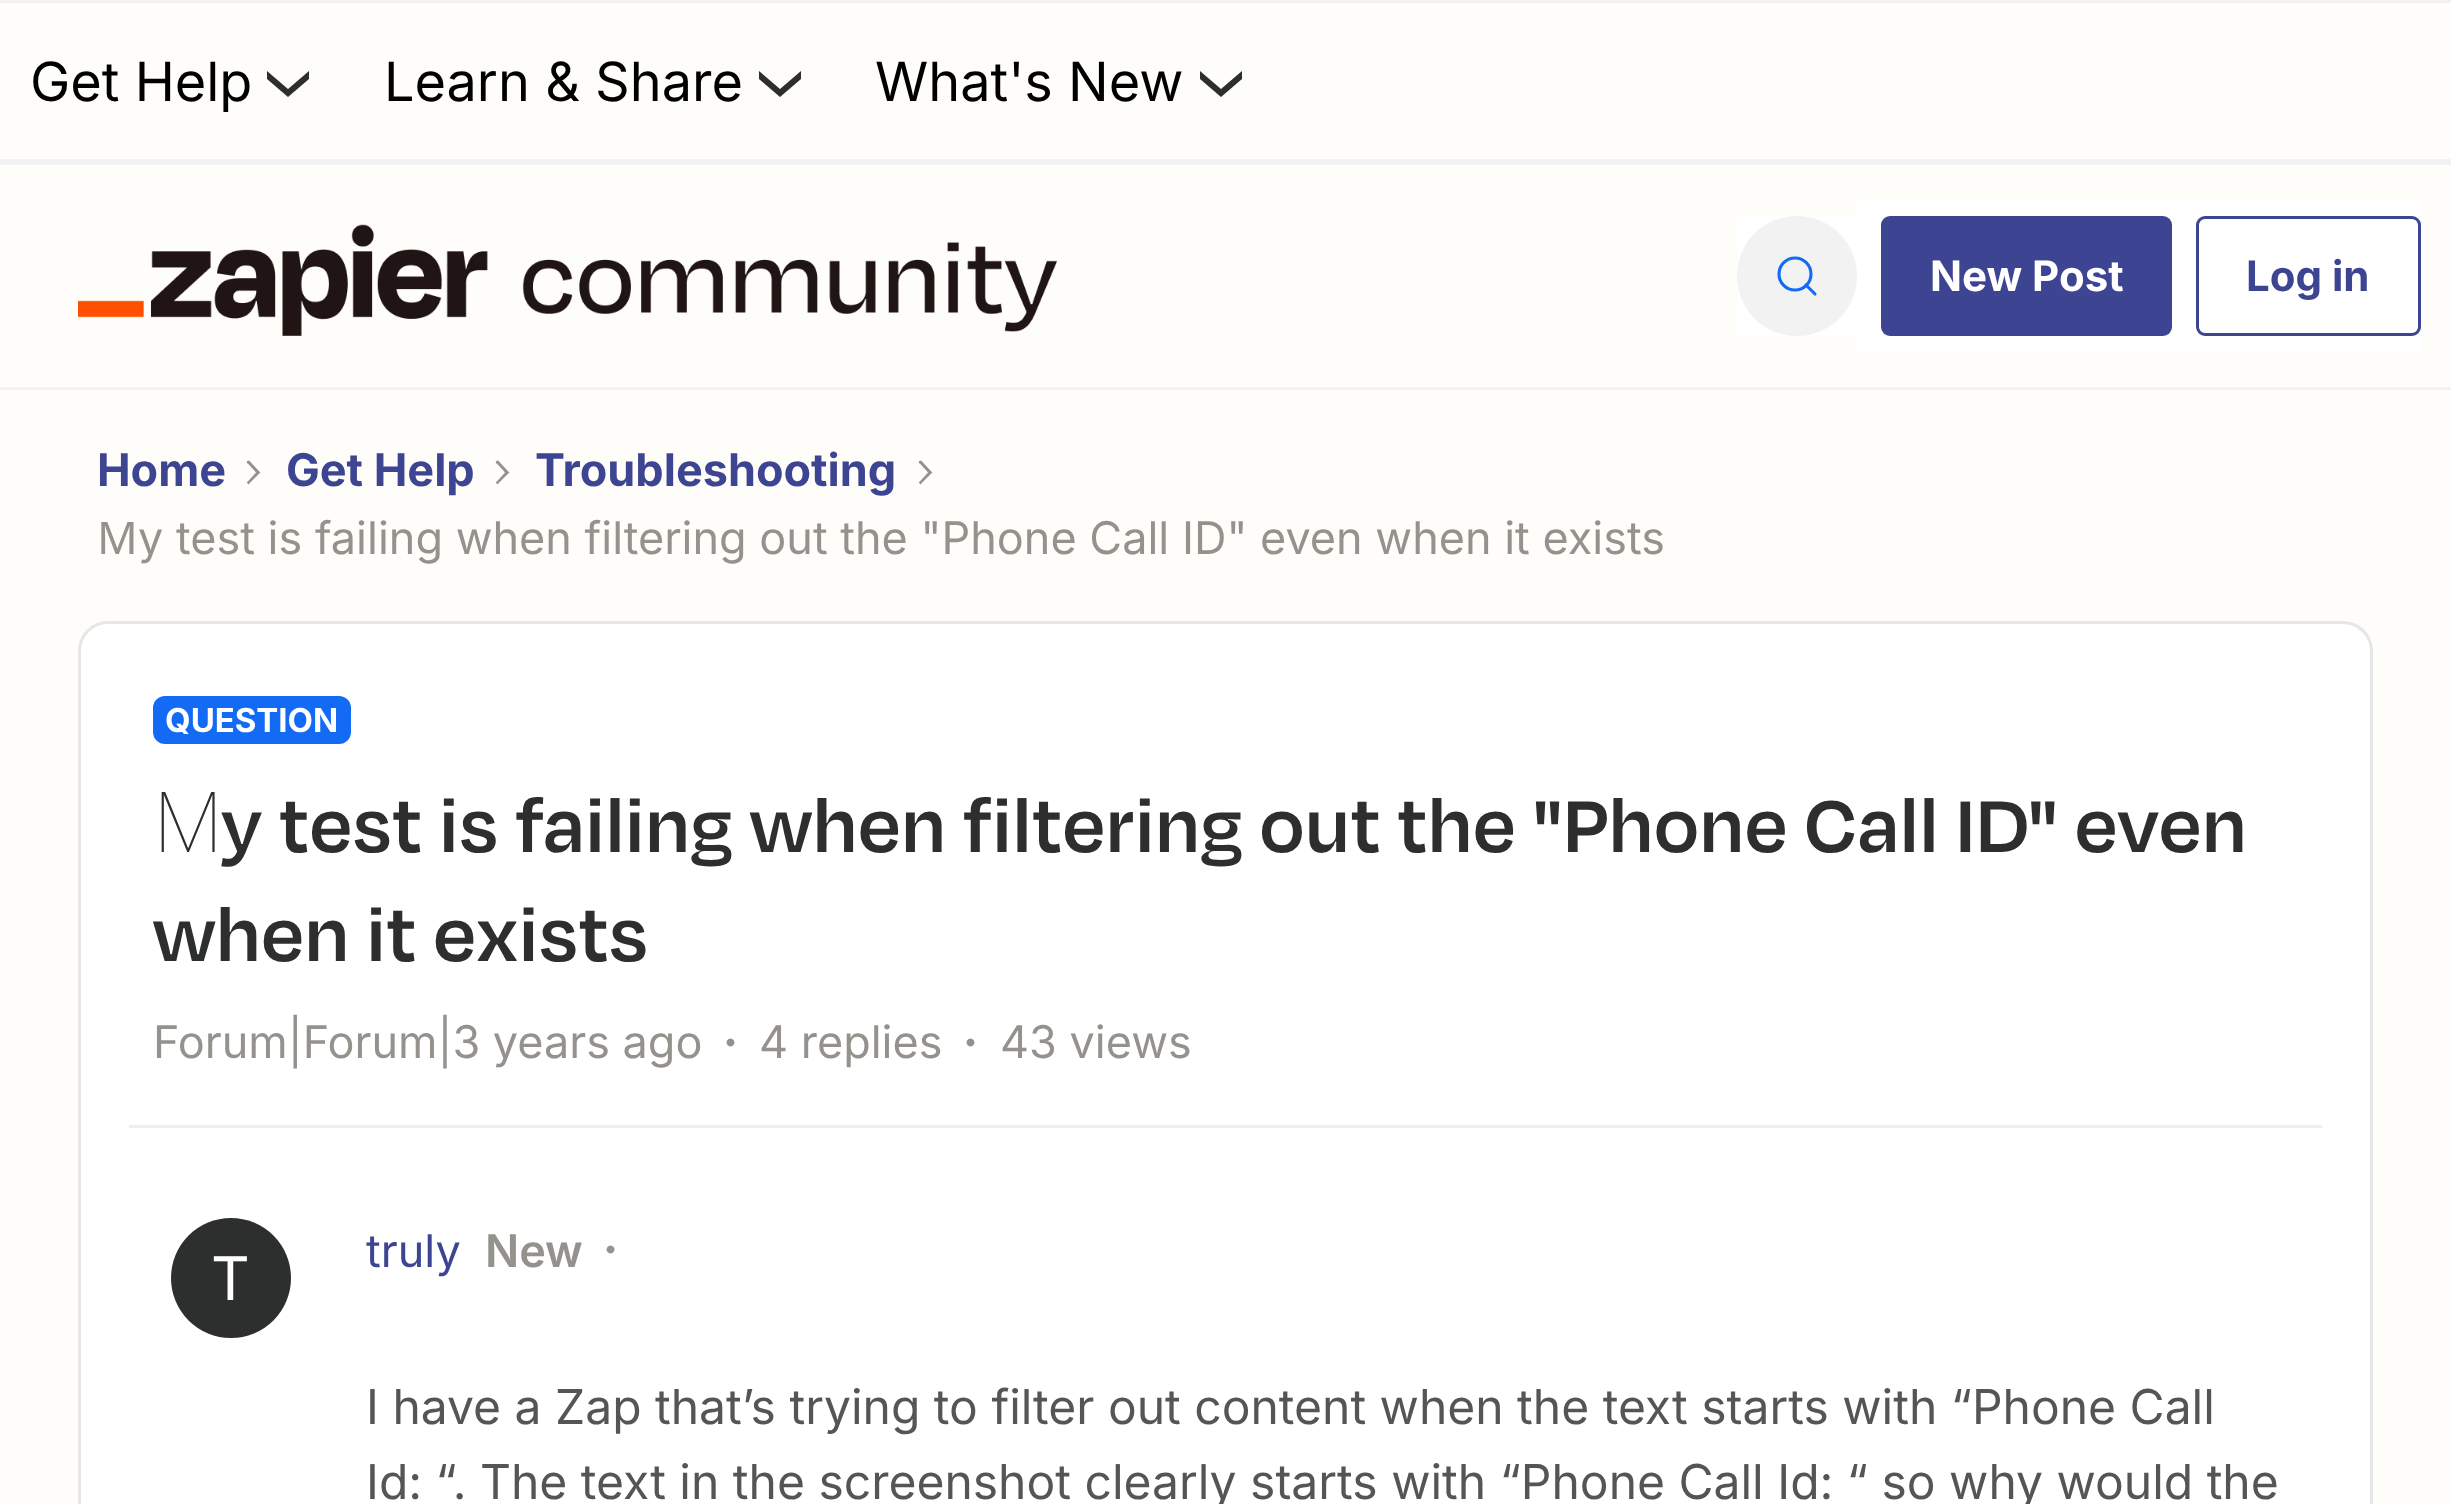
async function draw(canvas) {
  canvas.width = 2451
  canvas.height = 1504
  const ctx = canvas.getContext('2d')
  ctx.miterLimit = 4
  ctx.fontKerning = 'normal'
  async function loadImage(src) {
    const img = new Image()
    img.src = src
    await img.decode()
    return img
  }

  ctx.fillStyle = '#fffdf9'
  ctx.fillRect(0, 0, 2451, 1504)
  ctx.fillStyle = '#f2f2f2'
  ctx.fillRect(0, 0, 2451, 3)
  ctx.font = '54px Inter'
  ctx.fillStyle = '#000'
  ctx.fillText('Get Help', 30, 101)
  ctx.fillStyle = '#2d2e2e'
  ctx.beginPath()
  ctx.moveTo(309, 71)
  ctx.lineTo(309, 79)
  ctx.lineTo(288, 97)
  ctx.lineTo(267, 79)
  ctx.lineTo(267, 71)
  ctx.lineTo(288, 89)
  ctx.closePath()
  ctx.fill()
  ctx.fillStyle = '#000'
  ctx.fillText('Learn & Share', 384, 101)
  ctx.fillStyle = '#2d2e2e'
  ctx.beginPath()
  ctx.moveTo(801, 71)
  ctx.lineTo(801, 79)
  ctx.lineTo(780, 97)
  ctx.lineTo(759, 79)
  ctx.lineTo(759, 71)
  ctx.lineTo(780, 89)
  ctx.closePath()
  ctx.fill()
  ctx.fillStyle = '#000'
  ctx.fillText('What\'s New', 875, 101)
  ctx.fillStyle = '#2d2e2e'
  ctx.beginPath()
  ctx.moveTo(1242, 71)
  ctx.lineTo(1242, 79)
  ctx.lineTo(1221, 97)
  ctx.lineTo(1200, 79)
  ctx.lineTo(1200, 71)
  ctx.lineTo(1221, 89)
  ctx.closePath()
  ctx.fill()
  ctx.fillStyle = '#f2f2f2'
  ctx.fillRect(0, 159, 2451, 6)
  ctx.fillRect(0, 387, 2451, 3)
  ctx.drawImage(await loadImage('image0.png'), 78, 224, 979, 112)
  ctx.fillStyle = '#fff'
  ctx.fillRect(1737, 216, 120, 120)
  ctx.fillStyle = '#f2f2f2'
  ctx.beginPath()
  ctx.arc(1797, 276, 60, 0, 2 * Math.PI)
  ctx.fill()
  ctx.beginPath()
  ctx.arc(1795, 274, 16, 0, 2 * Math.PI)
  ctx.strokeStyle = '#136bf5'
  ctx.lineWidth = 3.1
  ctx.stroke()
  ctx.beginPath()
  ctx.moveTo(1806, 285)
  ctx.lineTo(1815, 294)
  ctx.lineCap = 'round'
  ctx.stroke()
  ctx.fillStyle = '#fff'
  ctx.fillRect(1857, 201, 564, 150)
  ctx.fillStyle = '#3d4592'
  ctx.beginPath()
  ctx.roundRect(1881, 216, 291, 120, 9)
  ctx.fill()
  ctx.font = 'bold 42px Inter'
  ctx.fillStyle = '#fff'
  ctx.fillText('New Post', 1930, 291)
  ctx.beginPath()
  ctx.roundRect(2197.5, 217.5, 222, 117, 7.5)
  ctx.strokeStyle = '#3d4592'
  ctx.lineWidth = 3
  ctx.stroke()
  ctx.fillStyle = '#3d4592'
  ctx.fillText('Log in', 2246, 291)
  ctx.font = 'bold 45px Inter'
  ctx.fillText('Home', 97, 486)
  ctx.drawImage(await loadImage('image1.png'), 246, 460, 15, 25)
  ctx.fillText('Get Help', 286, 486)
  ctx.drawImage(await loadImage('image1.png'), 495, 460, 15, 25)
  ctx.fillText('Troubleshooting', 535, 486)
  ctx.drawImage(await loadImage('image1.png'), 918, 460, 15, 25)
  ctx.font = '45px Noto Sans'
  ctx.fillStyle = '#95928e'
  ctx.fillText('M', 97, 554)
  ctx.font = '45px Inter'
  ctx.fillText('y test is failing when filtering out the "Phone Call ID" even when it exists', 138, 554)
  ctx.fillStyle = '#fff'
  ctx.beginPath()
  ctx.roundRect(79.5, 622.5, 2292, 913, 28.5)
  ctx.fill()
  ctx.strokeStyle = '#e6e6e6'
  ctx.stroke()
  ctx.fillStyle = '#136bf5'
  ctx.beginPath()
  ctx.roundRect(153, 696, 198, 48, 12)
  ctx.fill()
  ctx.font = 'bold 33px Inter'
  ctx.fillStyle = '#fff'
  ctx.fillText('QUESTION', 165, 732)
  ctx.letterSpacing = '0.6px'
  ctx.font = '100 84px Noto Sans'
  ctx.fillStyle = '#2d2e2e'
  ctx.fillText('M', 153, 852)
  ctx.font = '600 84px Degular'
  ctx.fillText('y test is failing when filtering out the "Phone Call ID" even', 221, 852)
  ctx.fillText('when it exists', 153, 961)
  ctx.letterSpacing = '0px'
  ctx.font = '45px Inter'
  ctx.fillStyle = '#95928e'
  ctx.fillText('Forum|Forum|3 years ago', 153, 1058)
  ctx.drawImage(await loadImage('image2.png'), 726, 1038, 9, 9)
  ctx.fillText('4 replies', 759, 1058)
  ctx.drawImage(await loadImage('image2.png'), 966, 1038, 9, 9)
  ctx.fillText('43 views', 1000, 1058)
  ctx.fillStyle = '#efefef'
  ctx.fillRect(129, 1125, 2193, 3)
  ctx.fillStyle = '#2d2e2e'
  ctx.beginPath()
  ctx.arc(231, 1278, 60, 0, 2 * Math.PI)
  ctx.fill()
  ctx.font = '60px Inter'
  ctx.fillStyle = '#fff'
  ctx.fillText('T', 211, 1300)
  ctx.font = '45px Inter'
  ctx.fillStyle = '#3d4592'
  ctx.fillText('truly', 366, 1267)
  ctx.font = '600 45px Inter'
  ctx.fillStyle = '#95928e'
  ctx.fillText('New', 485, 1267)
  ctx.drawImage(await loadImage('image2.png'), 606, 1245, 9, 9)
  ctx.font = '48px Inter'
  ctx.fillStyle = '#555'
  ctx.fillText('I have a Zap that’s trying to filter out content when the text starts with “Phone Call', 366, 1424)
  ctx.fillText('Id: “. The text in the screenshot clearly starts with “Phone Call Id: “ so why would the', 366, 1499)
}

draw(document.querySelector('canvas'))
